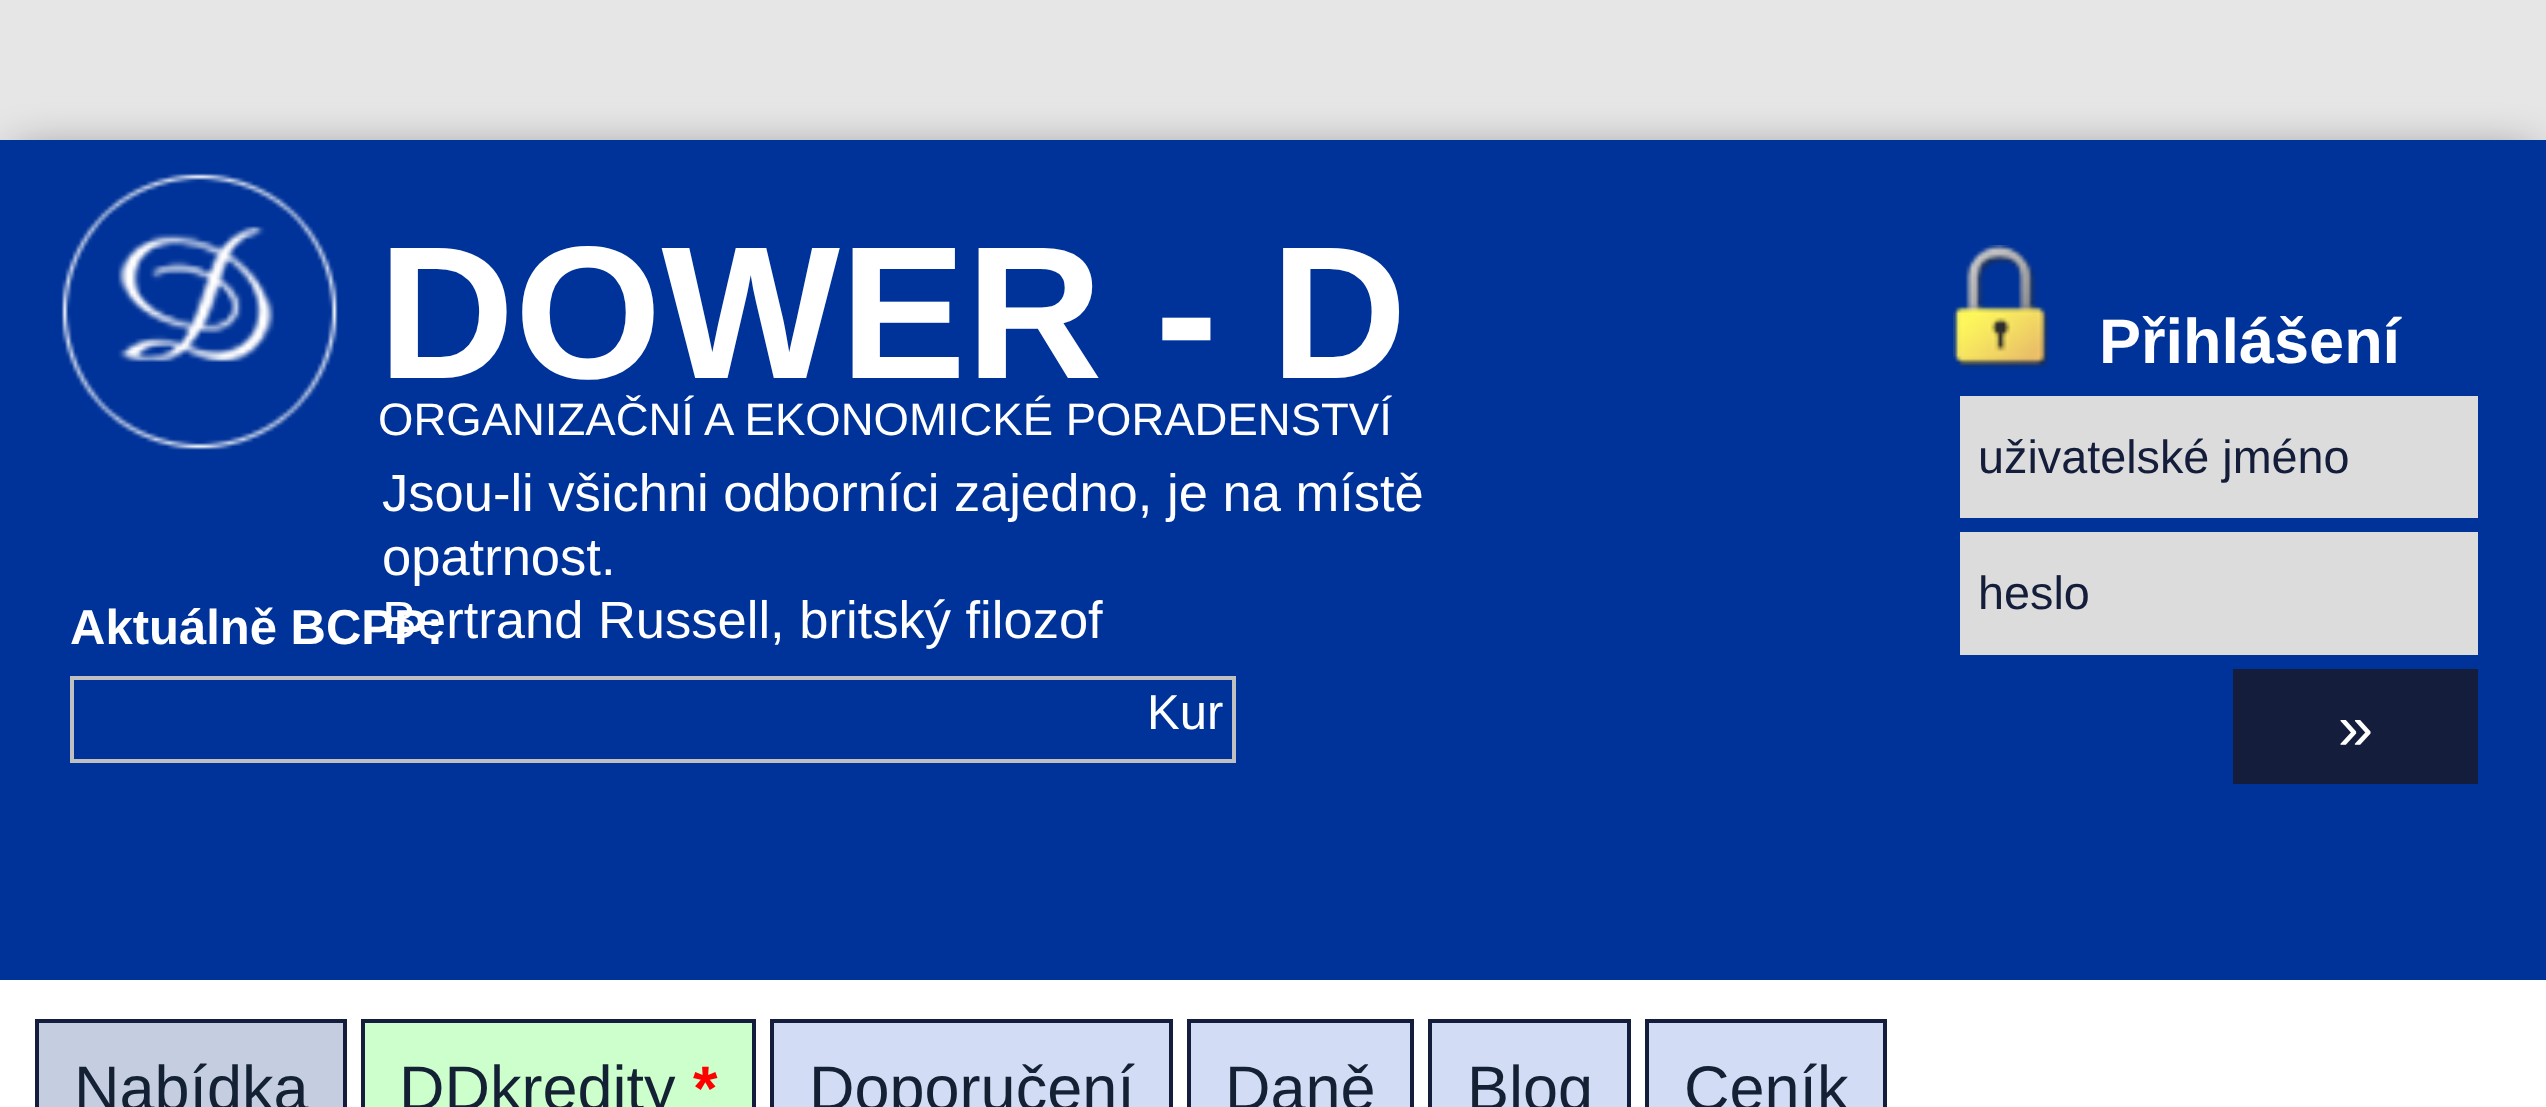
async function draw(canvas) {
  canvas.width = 2546
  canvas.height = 1107
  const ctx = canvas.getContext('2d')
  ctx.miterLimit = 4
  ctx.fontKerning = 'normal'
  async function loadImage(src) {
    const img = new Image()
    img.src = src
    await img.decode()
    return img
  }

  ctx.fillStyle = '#e6e6e6'
  ctx.fillRect(0, 0, 2546, 1107)
  ctx.fillStyle = '#00000078'
  ctx.filter = 'blur(23px)'
  ctx.beginPath()
  ctx.rect(14, 154, 2520, 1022)
  ctx.fill()
  ctx.filter = 'none'
  ctx.fillStyle = '#fff'
  ctx.fillRect(0, 980, 2546, 127)
  ctx.fillStyle = '#039'
  ctx.fillRect(0, 140, 2546, 840)
  ctx.drawImage(await loadImage('image0.png'), 61, 173, 277, 277)
  ctx.font = 'bold 189px Liberation Sans'
  ctx.fillStyle = '#fff'
  ctx.fillText('DOWER - D', 378, 378)
  ctx.font = '45.5px Liberation Sans'
  ctx.fillText('ORGANIZAČNÍ A EKONOMICKÉ PORADENSTVÍ', 378, 435)
  ctx.font = '52.5px Liberation Sans'
  ctx.fillText('Jsou-li všichni odborníci zajedno, je na místě', 382, 511)
  ctx.fillText('opatrnost.', 382, 575)
  ctx.fillText('Bertrand Russell, britský filozof', 382, 638)
  ctx.drawImage(await loadImage('image1.png'), 1953, 245, 96, 124)
  ctx.font = 'bold 63px Liberation Sans'
  ctx.fillText('Přihlášení', 2099, 363)
  ctx.fillStyle = '#dcdcdc'
  ctx.fillRect(1960, 396, 518, 122)
  ctx.font = '46.75px Liberation Sans'
  ctx.fillStyle = '#141d3a'
  ctx.fillText('uživatelské jméno', 1978, 473)
  ctx.fillStyle = '#dcdcdc'
  ctx.fillRect(1960, 532, 518, 123)
  ctx.fillStyle = '#141d3a'
  ctx.fillText('heslo', 1978, 609)
  ctx.fillStyle = '#141d3c'
  ctx.fillRect(2233, 669, 245, 115)
  ctx.font = '63px Liberation Sans'
  ctx.fillStyle = '#fff'
  ctx.fillText('»', 2338, 749)
  ctx.font = 'bold 49px Liberation Sans'
  ctx.fillText('Aktuálně BCPP:', 70, 644)
  ctx.strokeStyle = '#c0c0c0'
  ctx.lineWidth = 4
  ctx.strokeRect(72, 678, 1162, 83)
  ctx.font = '49px Liberation Sans'
  ctx.fillText('Kur', 1147, 729)
  ctx.fillStyle = '#c5cde0'
  ctx.fillRect(39, 1023, 304, 84)
  ctx.fillStyle = '#141d3c'
  ctx.fillRect(35, 1019, 312, 4)
  ctx.fillRect(343, 1019, 4, 88)
  ctx.fillRect(35, 1019, 4, 88)
  ctx.font = '63px Liberation Sans'
  ctx.fillStyle = '#142134'
  ctx.fillText('Nabídka', 74, 1110)
  ctx.fillStyle = '#cfc'
  ctx.beginPath()
  ctx.rect(363, 1021, 391, 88)
  ctx.fill()
  ctx.strokeStyle = '#141d3c'
  ctx.stroke()
  ctx.fillStyle = '#142134'
  ctx.fillText('DDkredity', 399, 1110)
  ctx.font = 'bold 63px Liberation Sans'
  ctx.fillStyle = '#f00'
  ctx.fillText('*', 693, 1110)
  ctx.fillStyle = '#d2dcf5'
  ctx.beginPath()
  ctx.rect(772, 1021, 399, 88)
  ctx.fill()
  ctx.stroke()
  ctx.font = '63px Liberation Sans'
  ctx.fillStyle = '#142134'
  ctx.fillText('Doporučení', 809, 1110)
  ctx.fillStyle = '#d2dcf5'
  ctx.beginPath()
  ctx.rect(1189, 1021, 223, 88)
  ctx.fill()
  ctx.stroke()
  ctx.fillStyle = '#142134'
  ctx.fillText('Daně', 1225, 1110)
  ctx.fillStyle = '#d2dcf5'
  ctx.beginPath()
  ctx.rect(1430, 1021, 199, 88)
  ctx.fill()
  ctx.stroke()
  ctx.fillStyle = '#142134'
  ctx.fillText('Blog', 1467, 1110)
  ctx.fillStyle = '#d2dcf5'
  ctx.beginPath()
  ctx.rect(1647, 1021, 238, 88)
  ctx.fill()
  ctx.stroke()
  ctx.fillStyle = '#142134'
  ctx.fillText('Ceník', 1684, 1110)
}

draw(document.querySelector('canvas'))
